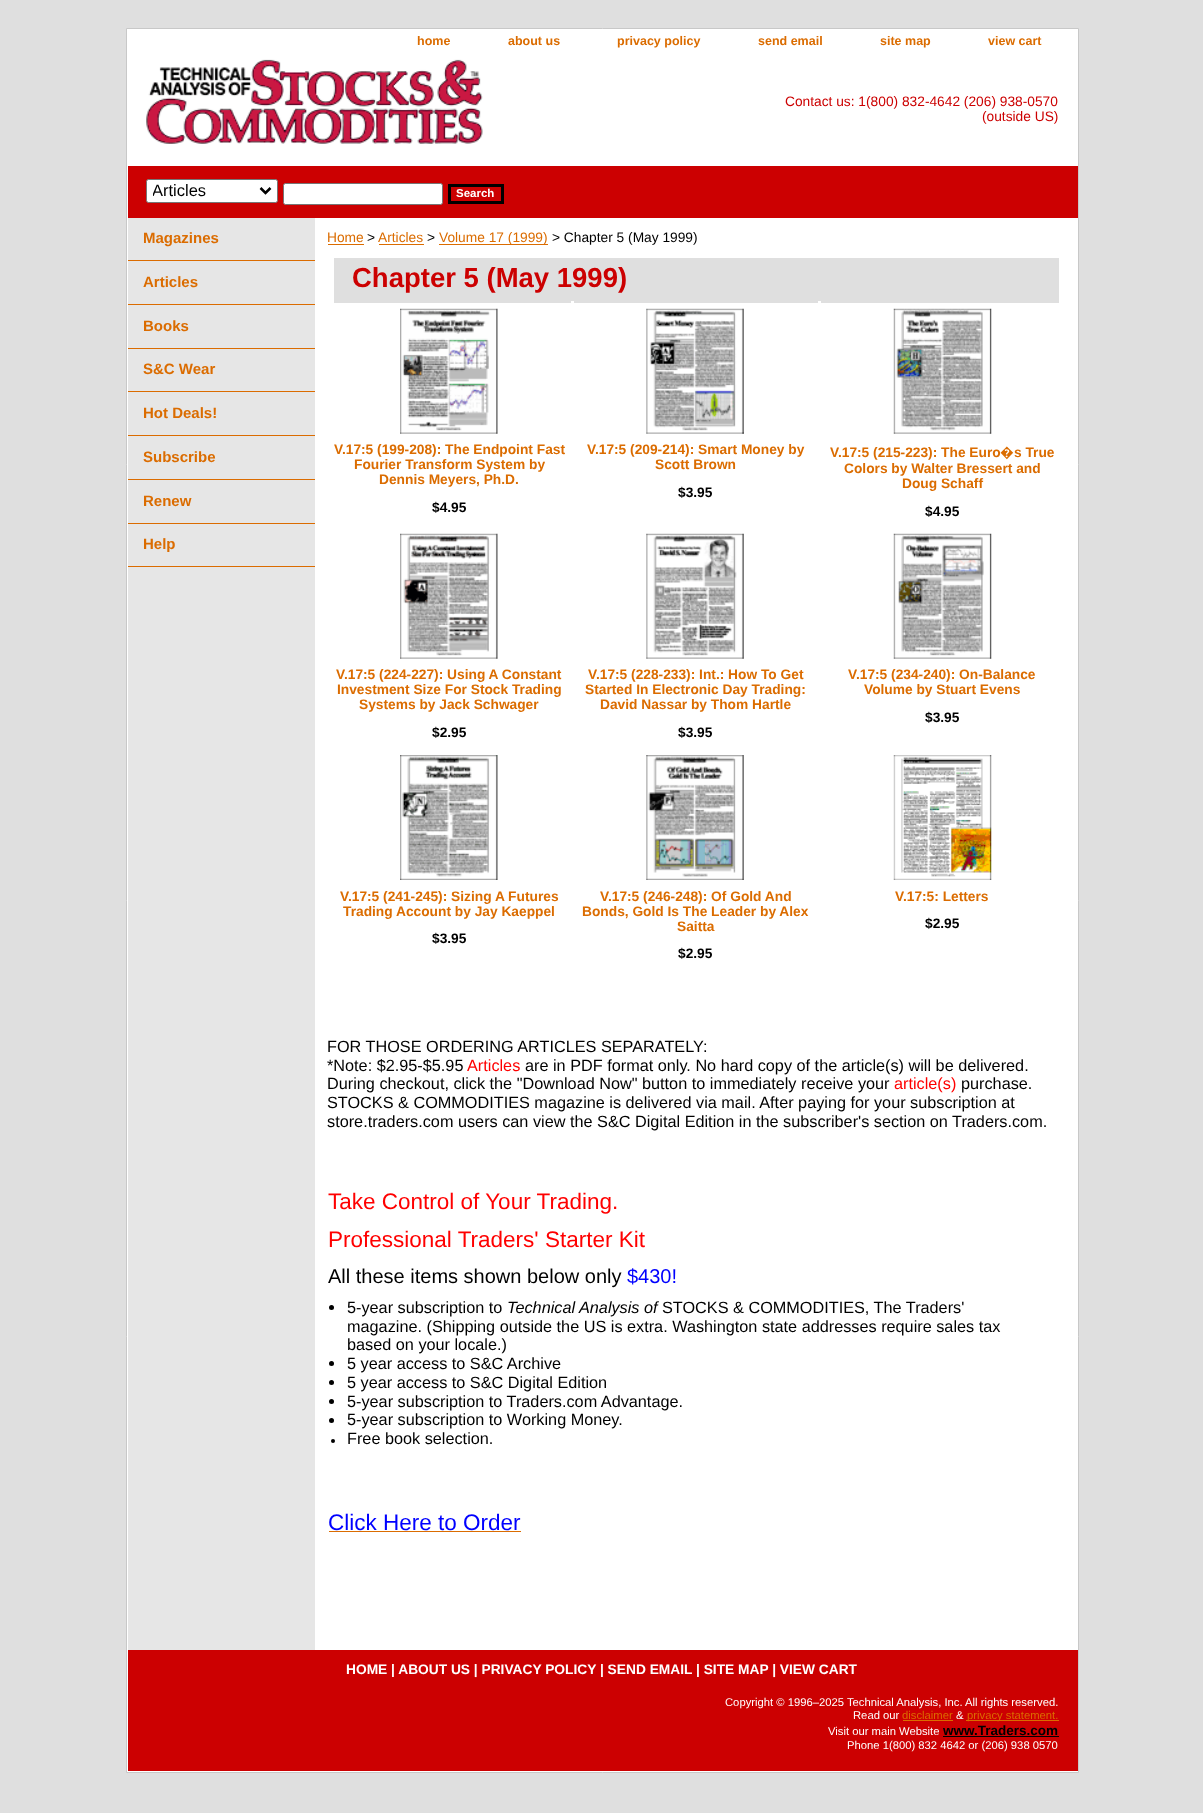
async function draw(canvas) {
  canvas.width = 1203
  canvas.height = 1813
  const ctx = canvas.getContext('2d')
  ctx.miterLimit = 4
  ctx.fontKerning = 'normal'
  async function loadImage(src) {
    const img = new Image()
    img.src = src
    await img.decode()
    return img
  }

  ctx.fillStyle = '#dfdfdf'
  ctx.fillRect(0, 0, 1203, 1813)
  ctx.fillStyle = '#fff'
  ctx.beginPath()
  ctx.rect(126.5, 28.5, 952, 1744)
  ctx.fill()
  ctx.strokeStyle = '#c8c8c8'
  ctx.stroke()
  ctx.font = 'bold 12.5px Liberation Sans'
  ctx.fillStyle = '#db6c00'
  ctx.fillText('home', 417, 45)
  ctx.fillText('about us', 508, 45)
  ctx.fillText('privacy policy', 617, 45)
  ctx.fillText('send email', 758, 45)
  ctx.fillText('site map', 880, 45)
  ctx.fillText('view cart', 988, 45)
  ctx.drawImage(await loadImage('image0.png'), 146, 59, 337, 85)
  ctx.font = '13.75px Liberation Sans'
  ctx.fillStyle = '#cc0001'
  ctx.fillText('Contact us: 1(800) 832-4642 (206) 938-0570', 785, 106)
  ctx.fillText('(outside US)', 982, 121)
  ctx.fillRect(128, 166, 950, 52)
  ctx.fillStyle = '#fff'
  ctx.beginPath()
  ctx.roundRect(146.5, 179.5, 131, 23, 2)
  ctx.fill()
  ctx.strokeStyle = '#767676'
  ctx.stroke()
  ctx.beginPath()
  ctx.moveTo(260.5, 188)
  ctx.lineTo(265.5, 193)
  ctx.lineTo(270.5, 188)
  ctx.strokeStyle = '#000'
  ctx.lineWidth = 2.5
  ctx.stroke()
  ctx.save()
  ctx.beginPath()
  ctx.rect(153, 180, 103, 21)
  ctx.clip()
  ctx.font = '16.5px Liberation Sans'
  ctx.fillStyle = '#000'
  ctx.fillText('Articles', 152, 196)
  ctx.restore()
  ctx.beginPath()
  ctx.roundRect(283.5, 183.5, 159, 21, 2)
  ctx.fill()
  ctx.strokeStyle = '#767676'
  ctx.lineWidth = 1
  ctx.stroke()
  ctx.strokeStyle = '#000'
  ctx.lineWidth = 3
  ctx.strokeRect(449.5, 185.5, 53, 17)
  ctx.font = 'bold 11.5px Liberation Sans'
  ctx.fillText('Search', 456, 197)
  ctx.fillStyle = '#e6e6e6'
  ctx.fillRect(128, 218, 187, 1432)
  ctx.fillStyle = '#db6c00'
  ctx.fillRect(128, 260, 187, 1)
  ctx.font = 'bold 15px Liberation Sans'
  ctx.fillText('Magazines', 143, 243)
  ctx.fillRect(128, 304, 187, 1)
  ctx.fillText('Articles', 143, 287)
  ctx.fillRect(128, 348, 187, 1)
  ctx.fillText('Books', 143, 331)
  ctx.fillRect(128, 391, 187, 1)
  ctx.fillText('S&C Wear', 143, 374)
  ctx.fillRect(128, 435, 187, 1)
  ctx.fillText('Hot Deals!', 143, 418)
  ctx.fillRect(128, 479, 187, 1)
  ctx.fillText('Subscribe', 143, 462)
  ctx.fillRect(128, 523, 187, 1)
  ctx.fillText('Renew', 143, 506)
  ctx.fillRect(128, 566, 187, 1)
  ctx.fillText('Help', 143, 549)
  ctx.font = '13.75px Liberation Sans'
  ctx.fillText('Home', 327, 242)
  ctx.fillRect(328, 244, 36, 1)
  ctx.fillStyle = '#000'
  ctx.fillText('>', 367, 242)
  ctx.fillStyle = '#db6c00'
  ctx.fillText('Articles', 378, 242)
  ctx.fillRect(379, 244, 45, 1)
  ctx.fillStyle = '#000'
  ctx.fillText('>', 427, 242)
  ctx.fillStyle = '#db6c00'
  ctx.fillRect(439, 244, 109, 1)
  ctx.fillText('Volume 17 (1999)', 439, 242)
  ctx.fillStyle = '#000'
  ctx.fillText('> Chapter 5 (May 1999)', 552, 242)
  ctx.fillStyle = '#dfdfdf'
  ctx.fillRect(334, 258, 725, 45)
  ctx.font = 'bold 27.5px Liberation Sans'
  ctx.fillStyle = '#cc0001'
  ctx.fillText('Chapter 5 (May 1999)', 352, 287)
  ctx.fillStyle = '#fff'
  ctx.fillRect(571, 301, 3, 2)
  ctx.drawImage(await loadImage('image1.png'), 400, 308, 98, 126)
  ctx.font = 'bold 13.75px Liberation Sans'
  ctx.fillStyle = '#db6c00'
  ctx.fillText('V.17:5 (199-208): The Endpoint Fast', 334, 454)
  ctx.fillText('Fourier Transform System by', 354, 469)
  ctx.fillText('Dennis Meyers, Ph.D.', 379, 484)
  ctx.fillStyle = '#000'
  ctx.fillText('$4.95', 432, 512)
  ctx.fillStyle = '#fff'
  ctx.fillRect(818, 301, 3, 2)
  ctx.drawImage(await loadImage('image2.png'), 646, 308, 98, 126)
  ctx.fillStyle = '#db6c00'
  ctx.fillText('V.17:5 (209-214): Smart Money by', 587, 454)
  ctx.fillText('Scott Brown', 655, 469)
  ctx.fillStyle = '#000'
  ctx.fillText('$3.95', 678, 497)
  ctx.drawImage(await loadImage('image3.png'), 893, 308, 99, 126)
  ctx.fillStyle = '#db6c00'
  ctx.fillText('V.17:5 (215-223): The Euro', 830, 457)
  ctx.font = 'bold 13.75px Noto Sans'
  ctx.fillText('�', 1000, 457)
  ctx.font = 'bold 13.75px Liberation Sans'
  ctx.fillText('s True', 1014, 457)
  ctx.fillText('Colors by Walter Bressert and', 844, 473)
  ctx.fillText('Doug Schaff', 902, 488)
  ctx.fillStyle = '#000'
  ctx.fillText('$4.95', 925, 516)
  ctx.drawImage(await loadImage('image4.png'), 400, 533, 98, 126)
  ctx.fillStyle = '#db6c00'
  ctx.fillText('V.17:5 (224-227): Using A Constant', 336, 679)
  ctx.fillText('Investment Size For Stock Trading', 337, 694)
  ctx.fillText('Systems by Jack Schwager', 359, 709)
  ctx.fillStyle = '#000'
  ctx.fillText('$2.95', 432, 737)
  ctx.drawImage(await loadImage('image5.png'), 646, 533, 98, 126)
  ctx.fillStyle = '#db6c00'
  ctx.fillText('V.17:5 (228-233): Int.: How To Get', 588, 679)
  ctx.fillText('Started In Electronic Day Trading:', 585, 694)
  ctx.fillText('David Nassar by Thom Hartle', 600, 709)
  ctx.fillStyle = '#000'
  ctx.fillText('$3.95', 678, 737)
  ctx.drawImage(await loadImage('image6.png'), 893, 533, 99, 126)
  ctx.fillStyle = '#db6c00'
  ctx.fillText('V.17:5 (234-240): On-Balance', 848, 679)
  ctx.fillText('Volume by Stuart Evens', 864, 694)
  ctx.fillStyle = '#000'
  ctx.fillText('$3.95', 925, 722)
  ctx.drawImage(await loadImage('image7.png'), 400, 755, 98, 125)
  ctx.fillStyle = '#db6c00'
  ctx.fillText('V.17:5 (241-245): Sizing A Futures', 340, 901)
  ctx.fillText('Trading Account by Jay Kaeppel', 343, 916)
  ctx.fillStyle = '#000'
  ctx.fillText('$3.95', 432, 943)
  ctx.drawImage(await loadImage('image8.png'), 646, 755, 98, 125)
  ctx.fillStyle = '#db6c00'
  ctx.fillText('V.17:5 (246-248): Of Gold And', 600, 901)
  ctx.fillText('Bonds, Gold Is The Leader by Alex', 582, 916)
  ctx.fillText('Saitta', 677, 931)
  ctx.fillStyle = '#000'
  ctx.fillText('$2.95', 678, 958)
  ctx.drawImage(await loadImage('image9.png'), 893, 755, 99, 125)
  ctx.fillStyle = '#db6c00'
  ctx.fillText('V.17:5: Letters', 895, 901)
  ctx.fillStyle = '#000'
  ctx.fillText('$2.95', 925, 928)
  ctx.font = '16.25px Liberation Sans'
  ctx.fillText('FOR THOSE ORDERING ARTICLES SEPARATELY:', 327, 1052)
  ctx.fillText('*Note: $2.95-$5.95', 327, 1071)
  ctx.fillStyle = '#f00'
  ctx.fillText('Articles', 467, 1071)
  ctx.fillStyle = '#000'
  ctx.fillText('are in PDF format only. No hard copy of the article(s) will be delivered.', 525, 1071)
  ctx.fillText('During checkout, click the "Download Now" button to immediately receive your', 327, 1089)
  ctx.fillStyle = '#f00'
  ctx.fillText('article(s)', 894, 1089)
  ctx.fillStyle = '#000'
  ctx.fillText('purchase.', 961, 1089)
  ctx.fillText('STOCKS & COMMODITIES magazine is delivered via mail. After paying for your subscription at', 327, 1108)
  ctx.fillText('store.traders.com users can view the S&C Digital Edition in the subscriber\'s section on Traders.com.', 327, 1127)
  ctx.font = '22.5px Liberation Sans'
  ctx.fillStyle = '#f00'
  ctx.fillText('Take Control of Your Trading.', 328, 1209)
  ctx.fillText('Professional Traders\' Starter Kit', 328, 1247)
  ctx.font = '20px Liberation Sans'
  ctx.fillStyle = '#000'
  ctx.fillText('All these items shown below only', 328, 1283)
  ctx.fillStyle = '#00f'
  ctx.fillText('$430!', 627, 1283)
  ctx.fillStyle = '#000'
  ctx.beginPath()
  ctx.arc(331.5, 1307.5, 2.5, 0, 2 * Math.PI)
  ctx.fill()
  ctx.font = '16.25px Liberation Sans'
  ctx.fillText('5-year subscription to', 347, 1313)
  ctx.font = 'italic 16.25px Liberation Sans'
  ctx.fillText('Technical Analysis of', 507, 1313)
  ctx.font = '16.25px Liberation Sans'
  ctx.fillText('STOCKS & COMMODITIES, The Traders\'', 662, 1313)
  ctx.fillText('magazine. (Shipping outside the US is extra. Washington state addresses require sales tax', 347, 1332)
  ctx.fillText('based on your locale.)', 347, 1350)
  ctx.beginPath()
  ctx.arc(331.5, 1363.5, 2.5, 0, 2 * Math.PI)
  ctx.fill()
  ctx.fillText('5 year access to S&C Archive', 347, 1369)
  ctx.beginPath()
  ctx.arc(331.5, 1382.5, 2.5, 0, 2 * Math.PI)
  ctx.fill()
  ctx.fillText('5 year access to S&C Digital Edition', 347, 1388)
  ctx.beginPath()
  ctx.arc(331.5, 1401.5, 2.5, 0, 2 * Math.PI)
  ctx.fill()
  ctx.fillText('5-year subscription to Traders.com Advantage.', 347, 1407)
  ctx.beginPath()
  ctx.arc(331.5, 1420.5, 2.5, 0, 2 * Math.PI)
  ctx.fill()
  ctx.fillText('5-year subscription to Working Money.', 347, 1425)
  ctx.beginPath()
  ctx.arc(333, 1441, 2, 0, 2 * Math.PI)
  ctx.fill()
  ctx.fillText('Free book selection.', 347, 1444)
  ctx.font = '22.5px Liberation Sans'
  ctx.fillStyle = '#00f'
  ctx.fillText('Click Here to Order', 328, 1530)
  ctx.fillStyle = '#db6c00'
  ctx.fillRect(329, 1531, 192, 1)
  ctx.fillStyle = '#cc0001'
  ctx.fillRect(128, 1650, 950, 121)
  ctx.font = 'bold 13.75px Liberation Sans'
  ctx.fillStyle = '#fff'
  ctx.fillText('HOME | ABOUT US | PRIVACY POLICY | SEND EMAIL | SITE MAP | VIEW CART', 346, 1674)
  ctx.font = '11.25px Liberation Sans'
  ctx.fillText('Copyright © 1996–2025 Technical Analysis, Inc. All rights reserved.', 725, 1706)
  ctx.fillText('Read our', 853, 1719)
  ctx.fillStyle = '#db6c00'
  ctx.fillText('disclaimer', 902, 1719)
  ctx.fillRect(903, 1720, 50, 1)
  ctx.fillStyle = '#fff'
  ctx.fillText('&', 956, 1719)
  ctx.fillStyle = '#db6c00'
  ctx.fillRect(966, 1720, 93, 1)
  ctx.fillText('privacy statement.', 967, 1719)
  ctx.fillStyle = '#fff'
  ctx.fillText('Visit our main Website', 828, 1735)
  ctx.font = 'bold 13.5px Liberation Sans'
  ctx.fillStyle = '#000'
  ctx.fillText('www.Traders.com', 943, 1735)
  ctx.fillRect(943, 1736, 116, 1)
  ctx.font = '11.25px Liberation Sans'
  ctx.fillStyle = '#fff'
  ctx.fillText('Phone 1(800) 832 4642 or (206) 938 0570', 847, 1749)
}

draw(document.querySelector('canvas'))
